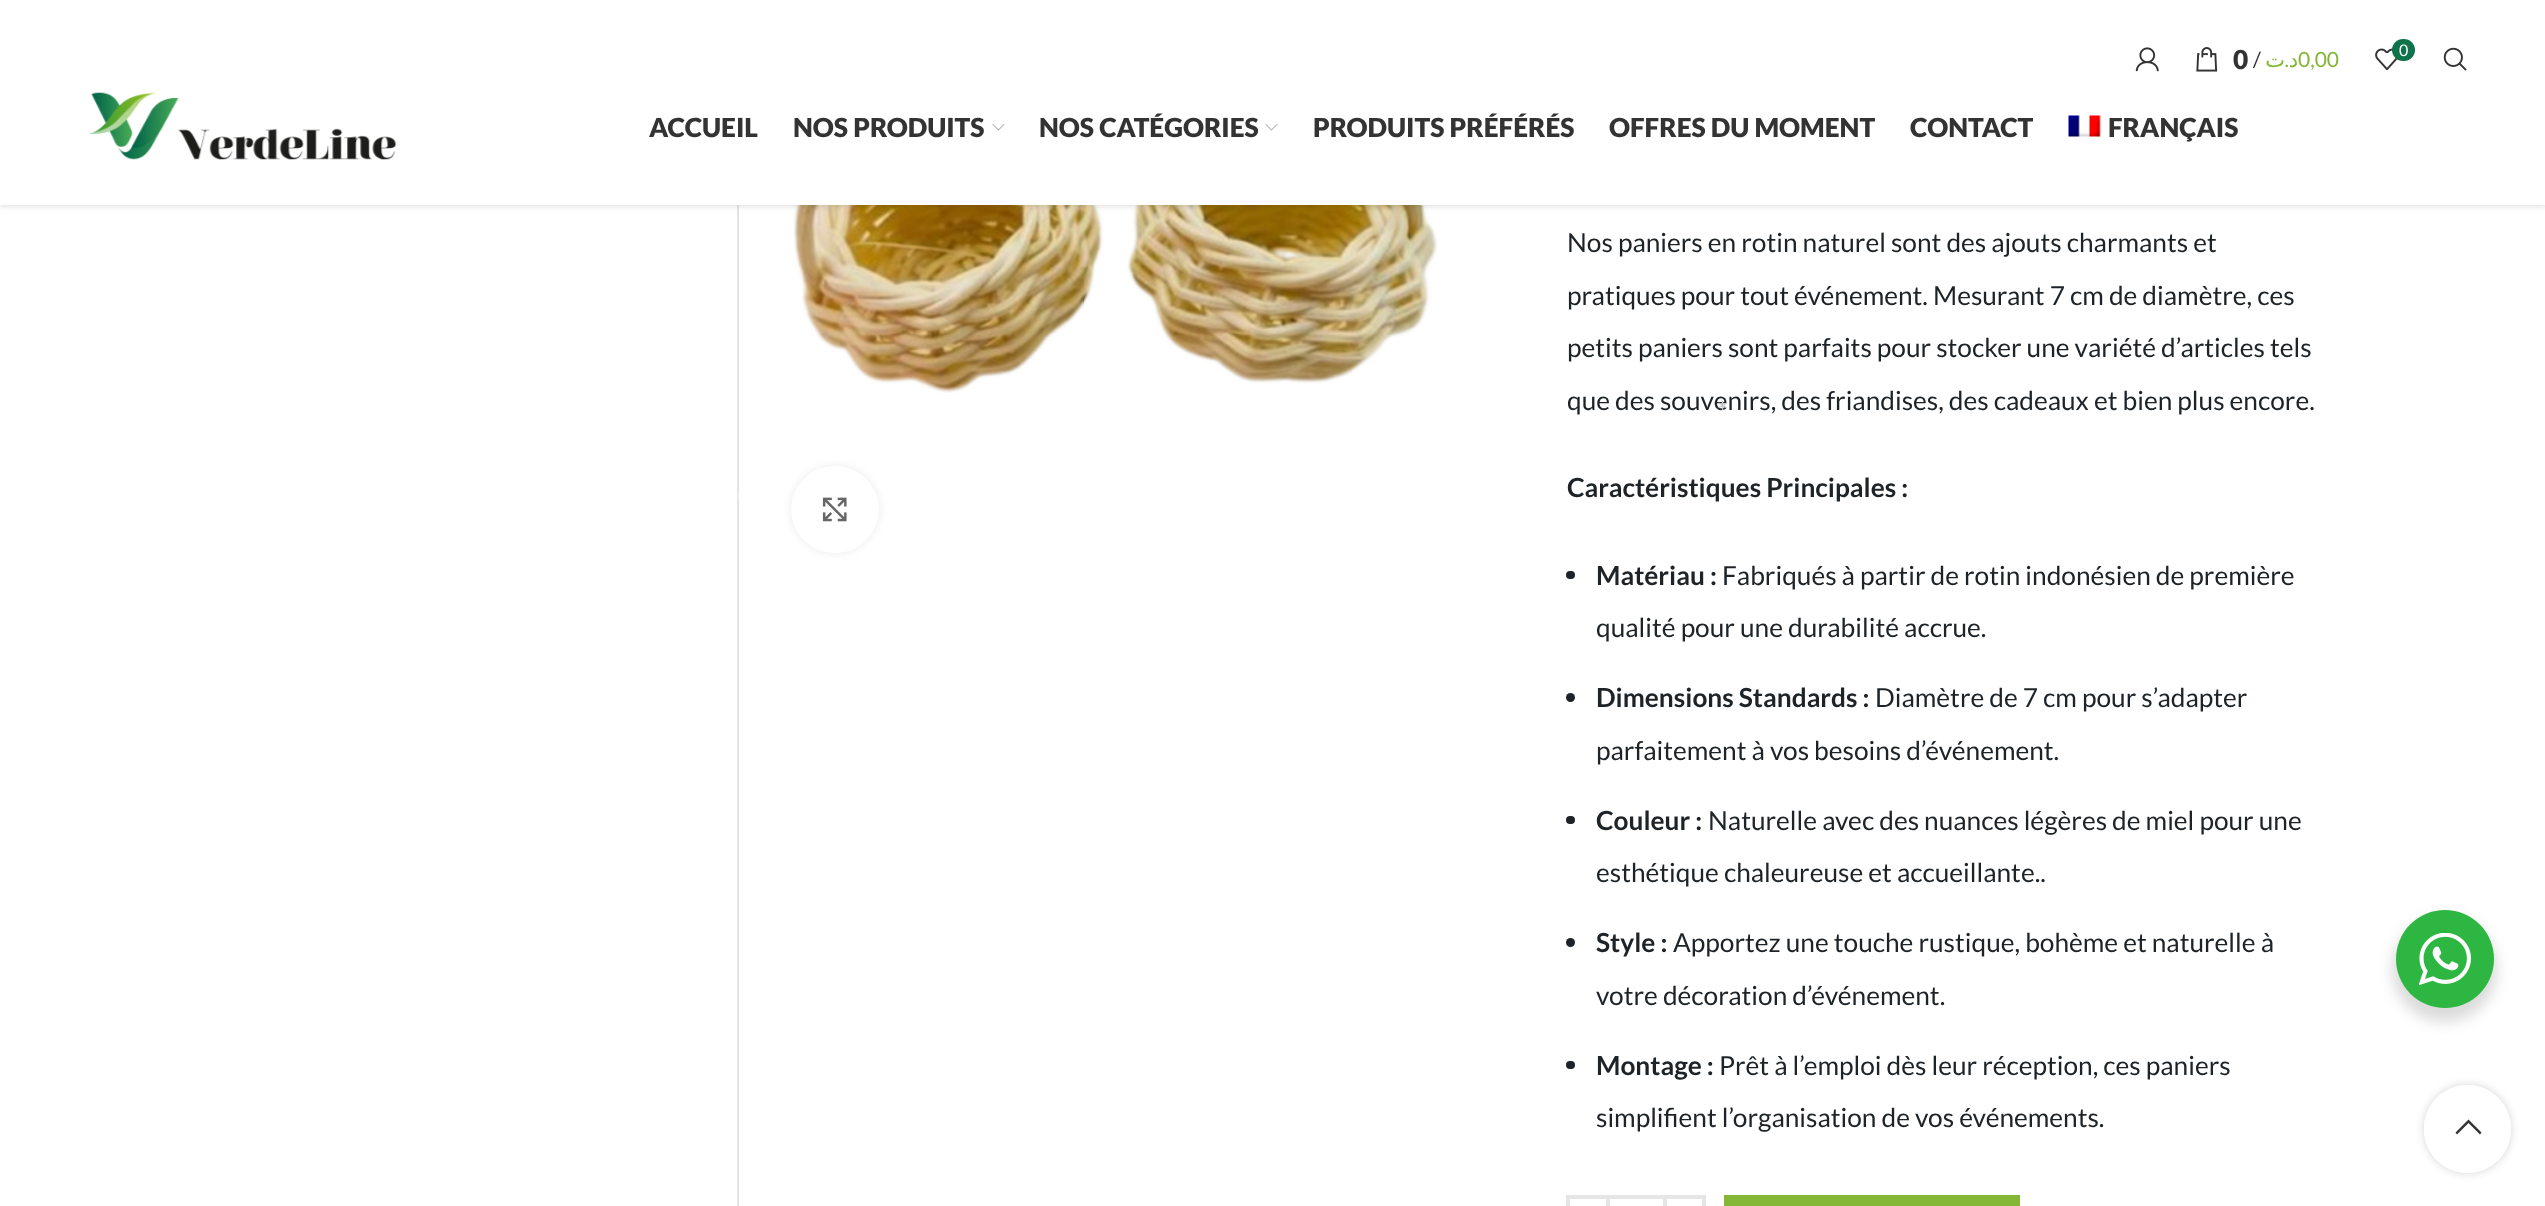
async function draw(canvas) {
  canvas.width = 2545
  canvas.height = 1206
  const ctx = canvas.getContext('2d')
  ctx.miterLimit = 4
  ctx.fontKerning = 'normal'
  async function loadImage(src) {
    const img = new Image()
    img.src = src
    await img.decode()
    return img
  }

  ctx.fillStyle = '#fff'
  ctx.fillRect(0, 0, 2545, 1206)
  ctx.fillStyle = '#e4e4e4'
  ctx.fillRect(737, 205, 2, 1001)
  ctx.drawImage(await loadImage('image7.png'), 793, 205, 645, 188)
  ctx.fillStyle = '#0000001a'
  ctx.filter = 'blur(2.5px)'
  ctx.beginPath()
  ctx.rect(0, 2, 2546, 205)
  ctx.fill()
  ctx.filter = 'none'
  ctx.fillStyle = '#fff'
  ctx.fillRect(0, 0, 2545, 205)
  ctx.drawImage(await loadImage('image0.png'), 2196, 47, 22, 25)
  ctx.font = '900 26.25px Lato'
  ctx.fillStyle = '#333'
  ctx.fillText('0', 2233, 69)
  ctx.font = '21px Lato'
  ctx.fillText('/', 2253, 67)
  ctx.direction = 'rtl'
  ctx.font = '21px DejaVu Sans'
  ctx.fillStyle = '#83b735'
  ctx.fillText('ت', 2285, 67)
  ctx.font = '21px Lato'
  ctx.fillText('.', 2289, 67)
  ctx.font = '21px DejaVu Sans'
  ctx.fillText('د', 2298, 67)
  ctx.direction = 'ltr'
  ctx.font = '21px Lato'
  ctx.fillText('0,00', 2298, 67)
  ctx.drawImage(await loadImage('image1.png'), 2375, 48, 23, 22)
  ctx.fillStyle = '#0e734b'
  ctx.beginPath()
  ctx.roundRect(2392, 39, 23, 22, 11)
  ctx.fill()
  ctx.font = '16px Lato'
  ctx.fillStyle = '#fff'
  ctx.fillText('0', 2399, 56)
  ctx.drawImage(await loadImage('image2.png'), 2443, 47, 24, 24)
  ctx.drawImage(await loadImage('image3.png'), 2135, 47, 24, 25)
  ctx.font = '26.25px Lato'
  ctx.fillStyle = '#1d2327'
  ctx.fillText('que des souvenirs, des friandises, des cadeaux et bien plus encore.', 1567, 410)
  ctx.font = '28px Lato'
  ctx.fillStyle = '#c5c6c7'
  ctx.fillText('*', 1717, 422)
  ctx.drawImage(await loadImage('image4.png'), 89, 92, 308, 68)
  ctx.font = '900 26.25px Lato'
  ctx.fillStyle = '#333'
  ctx.fillText('ACCUEIL', 649, 137)
  ctx.fillText('NOS PRODUITS', 793, 137)
  ctx.drawImage(await loadImage('image5.png'), 992, 124, 13, 7)
  ctx.fillText('NOS CATÉGORIES', 1039, 137)
  ctx.drawImage(await loadImage('image5.png'), 1265, 124, 13, 7)
  ctx.fillText('PRODUITS PRÉFÉRÉS', 1313, 137)
  ctx.fillText('OFFRES DU MOMENT', 1609, 137)
  ctx.fillText('CONTACT', 1910, 137)
  ctx.drawImage(await loadImage('image6.png'), 2068, 115, 33, 22)
  ctx.fillText('FRANÇAIS', 2108, 137)
  ctx.fillStyle = '#00000014'
  ctx.filter = 'blur(4.5px)'
  ctx.beginPath()
  ctx.roundRect(791, 466, 88, 87, 43.5)
  ctx.fill()
  ctx.filter = 'none'
  ctx.fillStyle = '#fff'
  ctx.beginPath()
  ctx.roundRect(791, 466, 88, 87, 43.5)
  ctx.fill()
  ctx.beginPath()
  ctx.moveTo(742.5, 503.5)
  ctx.bezierCurveTo(738.5, 499.5, 738.5, 492.5, 742.5, 488.5)
  ctx.strokeStyle = '#fff'
  ctx.lineWidth = 1.8
  ctx.stroke()
  ctx.drawImage(await loadImage('image8.png'), 822, 497, 25, 25)
  ctx.font = '26.25px Lato'
  ctx.fillStyle = '#1d2327'
  ctx.fillText('Nos paniers en rotin naturel sont des ajouts charmants et', 1567, 252)
  ctx.fillText('pratiques pour tout événement. Mesurant 7 cm de diamètre, ces', 1567, 305)
  ctx.fillText('petits paniers sont parfaits pour stocker une variété d’articles tels', 1567, 357)
  ctx.font = 'bold 26.25px Lato'
  ctx.fillText('Caractéristiques Principales :', 1567, 497)
  ctx.beginPath()
  ctx.roundRect(1566, 571, 9, 8, 4)
  ctx.fill()
  ctx.fillText('Matériau :', 1596, 585)
  ctx.font = '26.25px Lato'
  ctx.fillText('Fabriqués à partir de rotin indonésien de première', 1722, 585)
  ctx.fillText('qualité pour une durabilité accrue.', 1596, 637)
  ctx.beginPath()
  ctx.arc(1570.5, 697.5, 4.5, 0, 2 * Math.PI)
  ctx.fill()
  ctx.font = 'bold 26.25px Lato'
  ctx.fillText('Dimensions Standards :', 1596, 707)
  ctx.font = '26.25px Lato'
  ctx.fillText('Diamètre de 7 cm pour s’adapter', 1875, 707)
  ctx.fillText('parfaitement à vos besoins d’événement.', 1596, 760)
  ctx.beginPath()
  ctx.roundRect(1566, 816, 9, 8, 4)
  ctx.fill()
  ctx.font = 'bold 26.25px Lato'
  ctx.fillText('Couleur :', 1596, 830)
  ctx.font = '26.25px Lato'
  ctx.fillText('Naturelle avec des nuances légères de miel pour une', 1708, 830)
  ctx.fillText('esthétique chaleureuse et accueillante..', 1596, 882)
  ctx.beginPath()
  ctx.arc(1570.5, 942.5, 4.5, 0, 2 * Math.PI)
  ctx.fill()
  ctx.font = 'bold 26.25px Lato'
  ctx.fillText('Style :', 1596, 952)
  ctx.font = '26.25px Lato'
  ctx.fillText('Apportez une touche rustique, bohème et naturelle à', 1673, 952)
  ctx.fillText('votre décoration d’événement.', 1596, 1005)
  ctx.beginPath()
  ctx.roundRect(1566, 1061, 9, 8, 4)
  ctx.fill()
  ctx.font = 'bold 26.25px Lato'
  ctx.fillText('Montage :', 1596, 1075)
  ctx.font = '26.25px Lato'
  ctx.fillText('Prêt à l’emploi dès leur réception, ces paniers', 1719, 1075)
  ctx.fillText('simplifient l’organisation de vos événements.', 1596, 1127)
  ctx.strokeStyle = '#e6e6e6'
  ctx.lineWidth = 4
  ctx.strokeRect(1568, 1197, 40, 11)
  ctx.fillStyle = '#e6e6e6'
  ctx.fillRect(1610, 1195, 53, 4)
  ctx.strokeRect(1665, 1197, 39, 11)
  ctx.fillStyle = '#83b735'
  ctx.fillRect(1724, 1195, 296, 11)
  ctx.fillStyle = '#00000024'
  ctx.filter = 'blur(7px)'
  ctx.beginPath()
  ctx.roundRect(2392, 917, 105, 105, 52.5)
  ctx.fill()
  ctx.filter = 'none'
  ctx.fillStyle = '#2db742'
  ctx.beginPath()
  ctx.arc(2445, 959, 49, 0, 2 * Math.PI)
  ctx.fill()
  ctx.drawImage(await loadImage('image9.png'), 2419, 933, 52, 52)
  ctx.save()
  ctx.beginPath()
  ctx.moveTo(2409, 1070)
  ctx.lineTo(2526, 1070)
  ctx.lineTo(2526, 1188)
  ctx.lineTo(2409, 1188)
  ctx.closePath()
  ctx.moveTo(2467.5, 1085)
  ctx.bezierCurveTo(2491.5, 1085, 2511, 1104.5, 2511, 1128.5)
  ctx.lineTo(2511, 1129.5)
  ctx.bezierCurveTo(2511, 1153.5, 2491.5, 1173, 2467.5, 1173)
  ctx.bezierCurveTo(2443.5, 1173, 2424, 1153.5, 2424, 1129.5)
  ctx.lineTo(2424, 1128.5)
  ctx.bezierCurveTo(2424, 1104.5, 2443.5, 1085, 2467.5, 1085)
  ctx.closePath()
  ctx.clip('evenodd')
  ctx.fillStyle = '#0000002b'
  ctx.filter = 'blur(4.5px)'
  ctx.beginPath()
  ctx.roundRect(2424, 1085, 87, 88, 43.5)
  ctx.fill()
  ctx.filter = 'none'
  ctx.restore()
  ctx.fillStyle = '#ffffffe6'
  ctx.beginPath()
  ctx.roundRect(2424, 1085, 87, 88, 43.5)
  ctx.fill()
  ctx.fillStyle = '#333'
  ctx.beginPath()
  ctx.moveTo(2480, 1134.5)
  ctx.lineTo(2481.5, 1132.5)
  ctx.lineTo(2468.5, 1119.5)
  ctx.lineTo(2455.5, 1132.5)
  ctx.lineTo(2457, 1134.5)
  ctx.lineTo(2468.5, 1123)
  ctx.closePath()
  ctx.fill()
}

draw(document.querySelector('canvas'))
